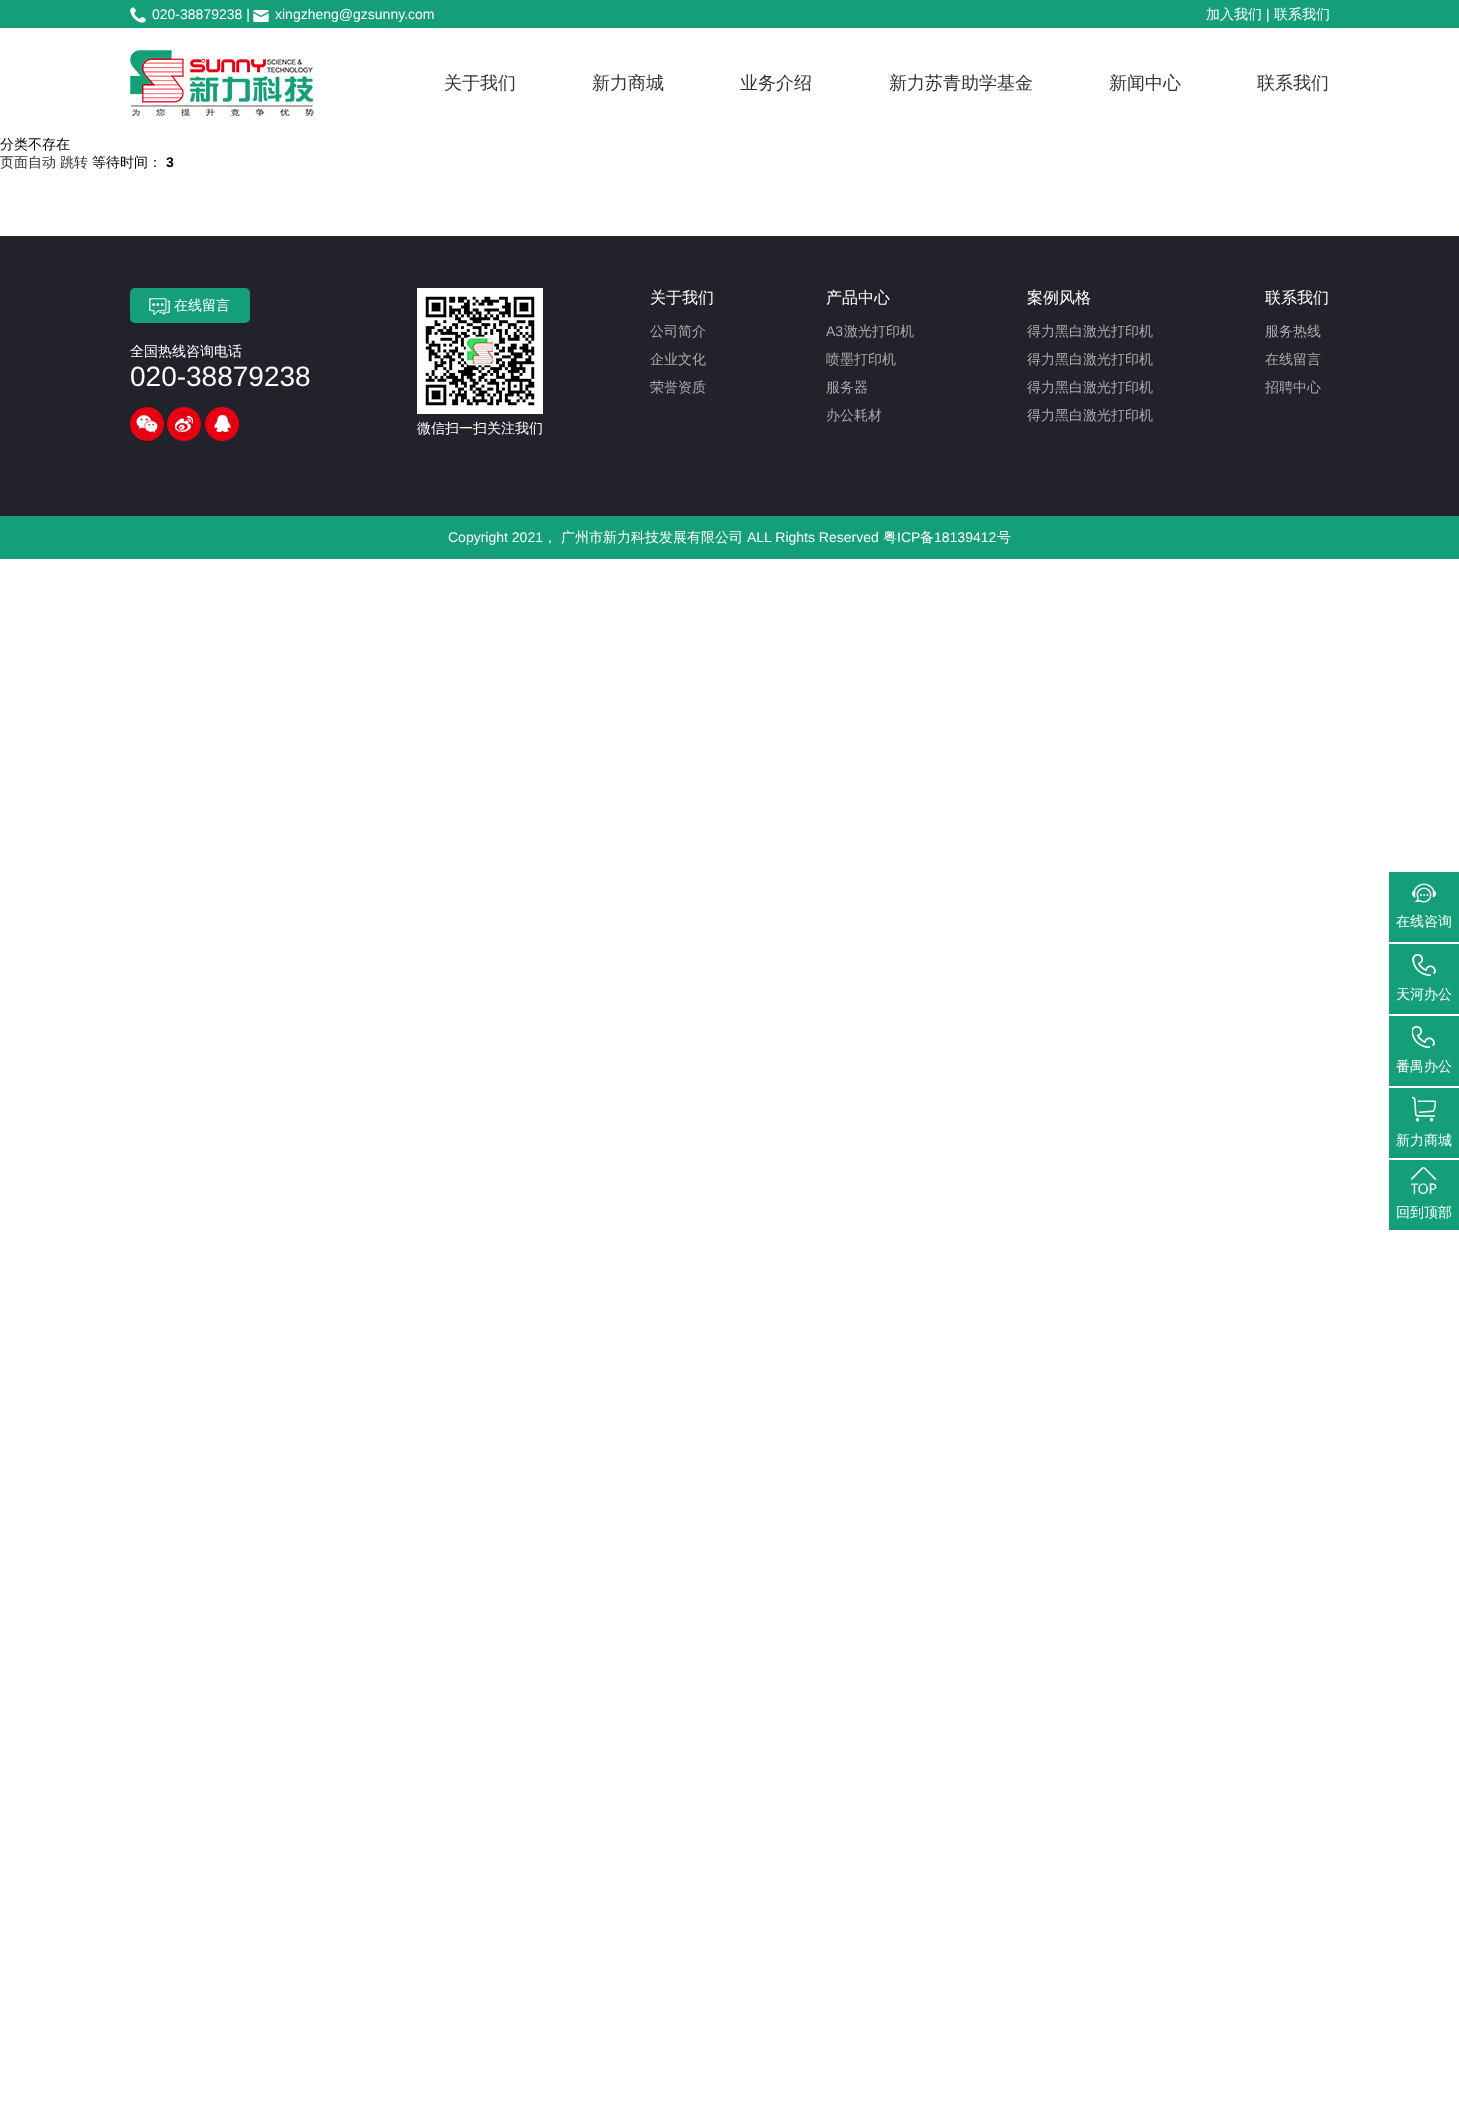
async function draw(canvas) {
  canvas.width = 1459
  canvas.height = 2103
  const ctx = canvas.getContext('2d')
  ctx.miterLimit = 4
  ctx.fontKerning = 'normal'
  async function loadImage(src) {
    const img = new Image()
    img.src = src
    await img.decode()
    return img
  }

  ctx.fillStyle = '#fff'
  ctx.fillRect(0, 0, 1459, 2103)
  ctx.fillStyle = '#149f79'
  ctx.fillRect(0, 0, 1459, 28)
  ctx.drawImage(await loadImage('image0.png'), 130, 7, 16, 16)
  ctx.font = '14px Liberation Sans'
  ctx.fillStyle = '#fff'
  ctx.fillText('020-38879238 |', 152, 19)
  ctx.drawImage(await loadImage('image1.png'), 253, 10, 16, 12)
  ctx.fillText('xingzheng@gzsunny.com', 275, 19)
  ctx.font = '500 14px WenQuanYi Zen Hei'
  ctx.fillText('加入我们', 1206, 19)
  ctx.font = '14px Liberation Sans'
  ctx.fillText('|', 1266, 19)
  ctx.font = '500 14px WenQuanYi Zen Hei'
  ctx.fillText('联系我们', 1274, 19)
  ctx.drawImage(await loadImage('image2.png'), 130, 50, 184, 66)
  ctx.font = '500 18px WenQuanYi Zen Hei'
  ctx.fillStyle = '#333'
  ctx.fillText('关于我们', 444, 89)
  ctx.fillText('新力商城', 592, 89)
  ctx.fillText('业务介绍', 740, 89)
  ctx.fillText('新力苏青助学基金', 889, 89)
  ctx.fillText('新闻中心', 1109, 89)
  ctx.fillText('联系我们', 1257, 89)
  ctx.font = '500 14px WenQuanYi Zen Hei'
  ctx.fillStyle = '#000'
  ctx.fillText('分类不存在', 0, 149)
  ctx.fillStyle = '#333'
  ctx.fillText('页面自动', 0, 167)
  ctx.fillText('跳转', 60, 167)
  ctx.fillStyle = '#000'
  ctx.fillText('等待时间：', 92, 167)
  ctx.font = 'bold 14px Liberation Sans'
  ctx.fillText('3', 166, 167)
  ctx.fillStyle = '#21222a'
  ctx.fillRect(0, 236, 1459, 280)
  ctx.fillStyle = '#149f79'
  ctx.beginPath()
  ctx.roundRect(130, 288, 120, 35, 5)
  ctx.fill()
  ctx.drawImage(await loadImage('image3.png'), 149, 298, 21, 17)
  ctx.font = '500 14px WenQuanYi Zen Hei'
  ctx.fillStyle = '#fff'
  ctx.fillText('在线留言', 174, 310)
  ctx.fillText('全国热线咨询电话', 130, 356)
  ctx.font = '28px Liberation Sans'
  ctx.fillText('020-38879238', 130, 386)
  ctx.drawImage(await loadImage('image4.png'), 130, 407, 34, 34)
  ctx.drawImage(await loadImage('image5.png'), 167, 407, 34, 34)
  ctx.drawImage(await loadImage('image6.png'), 205, 407, 34, 34)
  ctx.font = '500 16px WenQuanYi Zen Hei'
  ctx.fillText('关于我们', 650, 303)
  ctx.font = '500 14px WenQuanYi Zen Hei'
  ctx.fillStyle = '#ababab'
  ctx.fillText('公司简介', 650, 336)
  ctx.fillText('企业文化', 650, 364)
  ctx.fillText('荣誉资质', 650, 392)
  ctx.font = '500 16px WenQuanYi Zen Hei'
  ctx.fillStyle = '#fff'
  ctx.fillText('产品中心', 826, 303)
  ctx.font = '14px Liberation Sans'
  ctx.fillStyle = '#ababab'
  ctx.fillText('A3', 826, 336)
  ctx.font = '500 14px WenQuanYi Zen Hei'
  ctx.fillText('激光打印机', 844, 336)
  ctx.fillText('喷墨打印机', 826, 364)
  ctx.fillText('服务器', 826, 392)
  ctx.fillText('办公耗材', 826, 420)
  ctx.font = '500 16px WenQuanYi Zen Hei'
  ctx.fillStyle = '#fff'
  ctx.fillText('案例风格', 1027, 303)
  ctx.font = '500 14px WenQuanYi Zen Hei'
  ctx.fillStyle = '#ababab'
  ctx.fillText('得力黑白激光打印机', 1027, 336)
  ctx.fillText('得力黑白激光打印机', 1027, 364)
  ctx.fillText('得力黑白激光打印机', 1027, 392)
  ctx.fillText('得力黑白激光打印机', 1027, 420)
  ctx.font = '500 16px WenQuanYi Zen Hei'
  ctx.fillStyle = '#fff'
  ctx.fillText('联系我们', 1265, 303)
  ctx.font = '500 14px WenQuanYi Zen Hei'
  ctx.fillStyle = '#ababab'
  ctx.fillText('服务热线', 1265, 336)
  ctx.fillText('在线留言', 1265, 364)
  ctx.fillText('招聘中心', 1265, 392)
  ctx.drawImage(await loadImage('image7.png'), 417, 288, 126, 126)
  ctx.fillStyle = '#fff'
  ctx.fillText('微信扫一扫关注我们', 417, 433)
  ctx.fillStyle = '#149f79'
  ctx.fillRect(0, 516, 1459, 43)
  ctx.font = '14px Liberation Sans'
  ctx.fillStyle = '#fff'
  ctx.fillText('Copyright 2021', 448, 542)
  ctx.font = '500 14px WenQuanYi Zen Hei'
  ctx.fillText('，', 543, 542)
  ctx.fillText('广州市新力科技发展有限公司', 561, 542)
  ctx.font = '14px Liberation Sans'
  ctx.fillText('ALL Rights Reserved', 747, 542)
  ctx.font = '500 14px WenQuanYi Zen Hei'
  ctx.fillText('粤', 883, 542)
  ctx.font = '14px Liberation Sans'
  ctx.fillText('ICP', 897, 542)
  ctx.font = '500 14px WenQuanYi Zen Hei'
  ctx.fillText('备', 920, 542)
  ctx.font = '14px Liberation Sans'
  ctx.fillText('18139412', 934, 542)
  ctx.font = '500 14px WenQuanYi Zen Hei'
  ctx.fillText('号', 997, 542)
  ctx.fillStyle = '#149f79'
  ctx.fillRect(1389, 872, 70, 70)
  ctx.drawImage(await loadImage('image8.png'), 1412, 883, 24, 20)
  ctx.fillStyle = '#fff'
  ctx.fillText('在线咨询', 1396, 926)
  ctx.fillStyle = '#149f79'
  ctx.fillRect(1389, 944, 70, 70)
  ctx.drawImage(await loadImage('image9.png'), 1412, 954, 24, 22)
  ctx.fillStyle = '#fff'
  ctx.fillText('天河办公', 1396, 999)
  ctx.fillStyle = '#149f79'
  ctx.fillRect(1389, 1016, 70, 70)
  ctx.drawImage(await loadImage('image10.png'), 1412, 1026, 23, 22)
  ctx.fillStyle = '#fff'
  ctx.fillText('番禺办公', 1396, 1071)
  ctx.fillStyle = '#149f79'
  ctx.fillRect(1389, 1088, 70, 70)
  ctx.drawImage(await loadImage('image11.png'), 1412, 1096, 24, 26)
  ctx.fillStyle = '#fff'
  ctx.fillText('新力商城', 1396, 1145)
  ctx.fillStyle = '#149f79'
  ctx.fillRect(1389, 1160, 70, 70)
  ctx.drawImage(await loadImage('image12.png'), 1411, 1167, 26, 27)
  ctx.fillStyle = '#fff'
  ctx.fillText('回到顶部', 1396, 1217)
}

draw(document.querySelector('canvas'))
